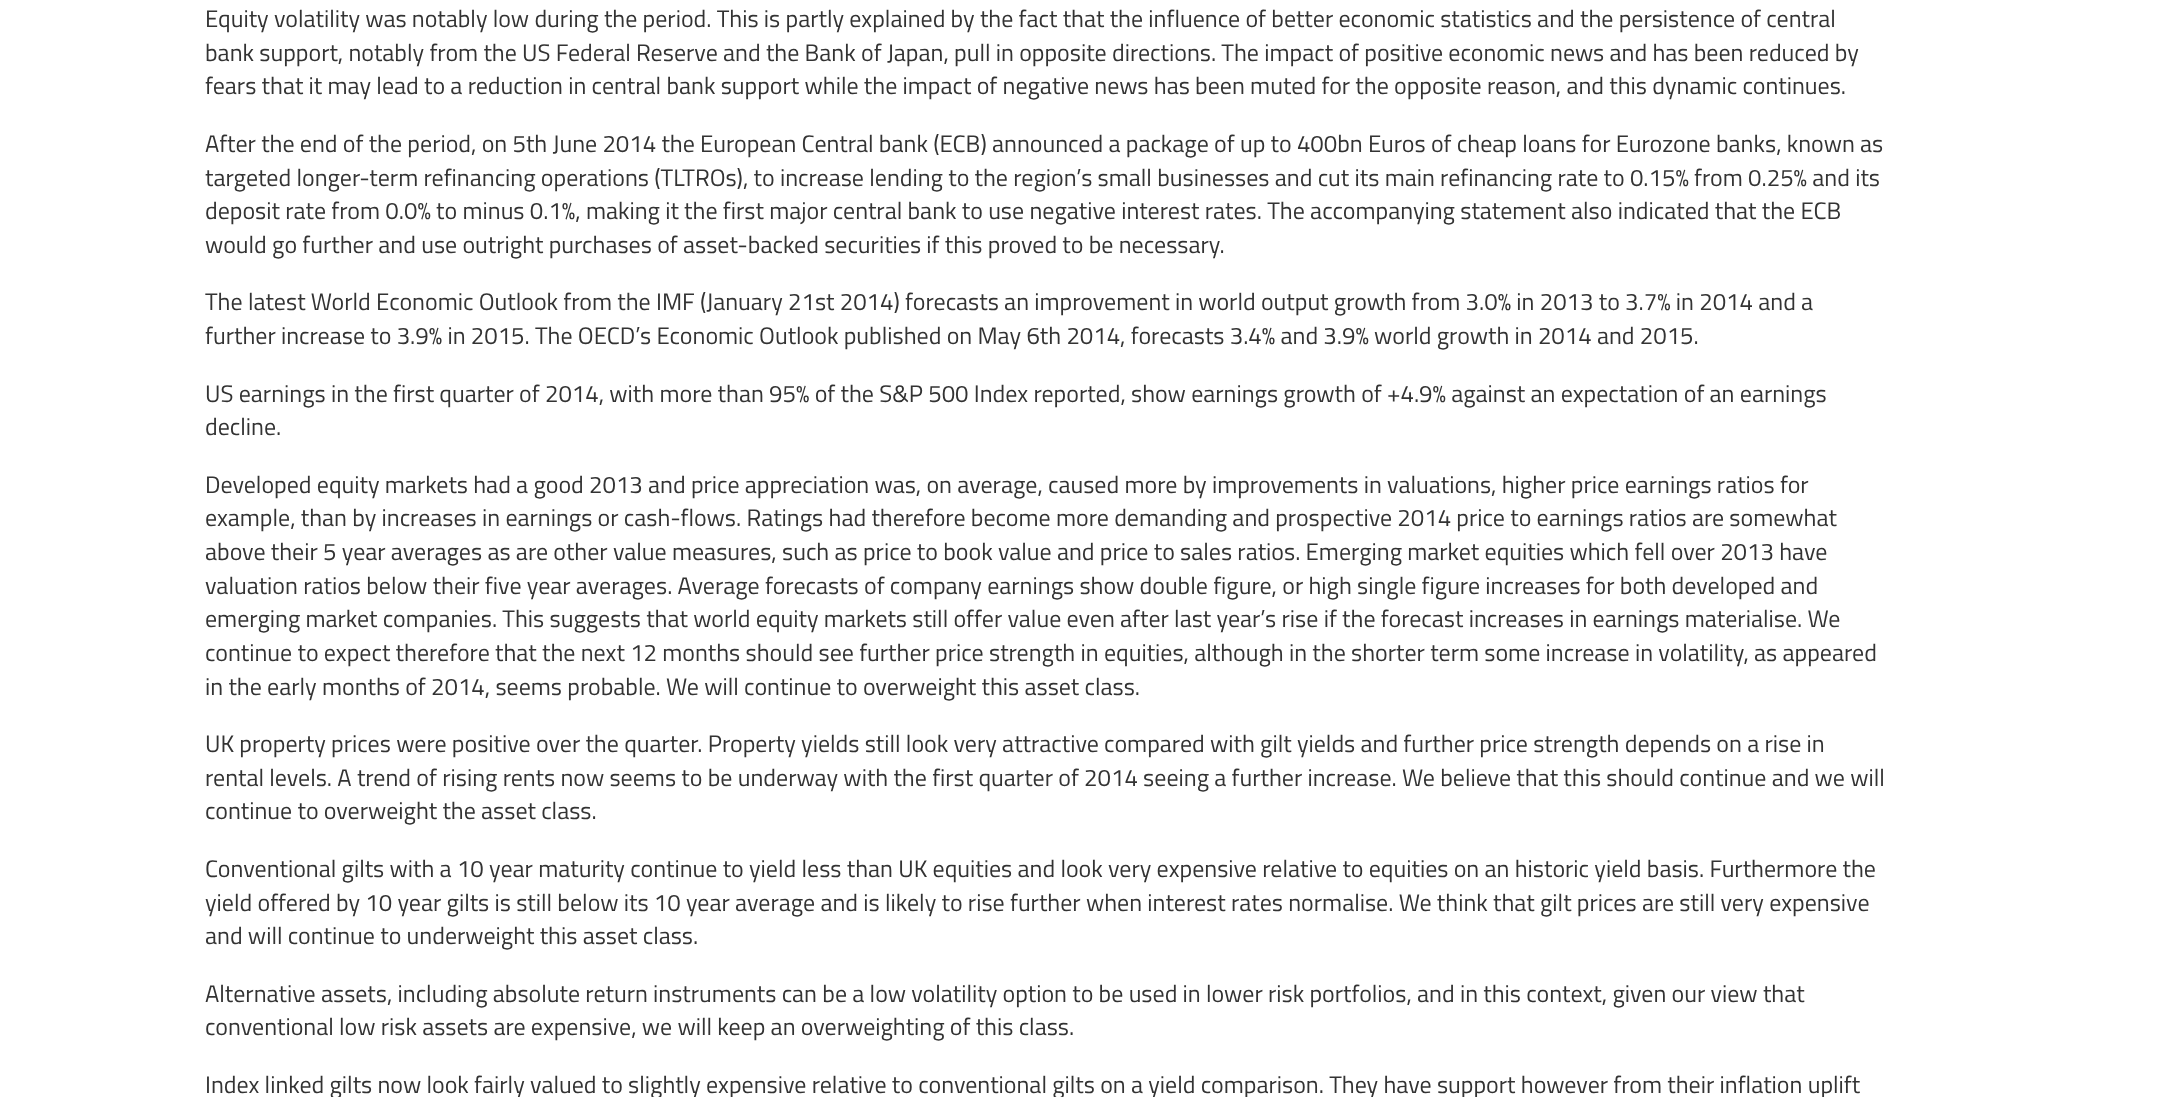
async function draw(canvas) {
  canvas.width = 2164
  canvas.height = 1097
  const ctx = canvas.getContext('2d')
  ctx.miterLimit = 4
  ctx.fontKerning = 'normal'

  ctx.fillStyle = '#fff'
  ctx.fillRect(0, 0, 2164, 1097)
  ctx.font = '24px Titillium Web'
  ctx.fillStyle = '#333'
  ctx.fillText('Equity volatility was notably low during the period. This is partly explained by the fact that the influence of better economic statistics and the persistence of central', 205, 27)
  ctx.fillText('bank support, notably from the US Federal Reserve and the Bank of Japan, pull in opposite directions. The impact of positive economic news and has been reduced by', 205, 61)
  ctx.fillText('fears that it may lead to a reduction in central bank support while the impact of negative news has been muted for the opposite reason, and this dynamic continues.', 205, 94)
  ctx.fillText('After the end of the period, on 5th June 2014 the European Central bank (ECB) announced a package of up to 400bn Euros of cheap loans for Eurozone banks, known as', 205, 152)
  ctx.fillText('targeted longer-term refinancing operations (TLTROs), to increase lending to the region’s small businesses and cut its main refinancing rate to 0.15% from 0.25% and its', 205, 186)
  ctx.fillText('deposit rate from 0.0% to minus 0.1%, making it the first major central bank to use negative interest rates. The accompanying statement also indicated that the ECB', 205, 219)
  ctx.fillText('would go further and use outright purchases of asset-backed securities if this proved to be necessary.', 205, 253)
  ctx.fillText('The latest World Economic Outlook from the IMF (January 21st 2014) forecasts an improvement in world output growth from 3.0% in 2013 to 3.7% in 2014 and a', 205, 310)
  ctx.fillText('further increase to 3.9% in 2015. The OECD’s Economic Outlook published on May 6th 2014, forecasts 3.4% and 3.9% world growth in 2014 and 2015.', 205, 344)
  ctx.fillText('US earnings in the first quarter of 2014, with more than 95% of the S&P 500 Index reported, show earnings growth of +4.9% against an expectation of an earnings', 205, 402)
  ctx.fillText('decline.', 205, 435)
  ctx.fillText('Developed equity markets had a good 2013 and price appreciation was, on average, caused more by improvements in valuations, higher price earnings ratios for', 205, 493)
  ctx.fillText('example, than by increases in earnings or cash-flows. Ratings had therefore become more demanding and prospective 2014 price to earnings ratios are somewhat', 205, 526)
  ctx.fillText('above their 5 year averages as are other value measures, such as price to book value and price to sales ratios. Emerging market equities which fell over 2013 have', 205, 560)
  ctx.fillText('valuation ratios below their five year averages. Average forecasts of company earnings show double figure, or high single figure increases for both developed and', 205, 594)
  ctx.fillText('emerging market companies. This suggests that world equity markets still offer value even after last year’s rise if the forecast increases in earnings materialise. We', 205, 627)
  ctx.fillText('continue to expect therefore that the next 12 months should see further price strength in equities, although in the shorter term some increase in volatility, as appeared', 205, 661)
  ctx.fillText('in the early months of 2014, seems probable. We will continue to overweight this asset class.', 205, 695)
  ctx.fillText('UK property prices were positive over the quarter. Property yields still look very attractive compared with gilt yields and further price strength depends on a rise in', 205, 752)
  ctx.fillText('rental levels. A trend of rising rents now seems to be underway with the first quarter of 2014 seeing a further increase. We believe that this should continue and we will', 205, 786)
  ctx.fillText('continue to overweight the asset class.', 205, 819)
  ctx.fillText('Conventional gilts with a 10 year maturity continue to yield less than UK equities and look very expensive relative to equities on an historic yield basis. Furthermore the', 205, 877)
  ctx.fillText('yield offered by 10 year gilts is still below its 10 year average and is likely to rise further when interest rates normalise. We think that gilt prices are still very expensive', 205, 911)
  ctx.fillText('and will continue to underweight this asset class.', 205, 944)
  ctx.fillText('Alternative assets, including absolute return instruments can be a low volatility option to be used in lower risk portfolios, and in this context, given our view that', 205, 1002)
  ctx.fillText('conventional low risk assets are expensive, we will keep an overweighting of this class.', 205, 1035)
  ctx.fillText('Index linked gilts now look fairly valued to slightly expensive relative to conventional gilts on a yield comparison. They have support however from their inflation uplift', 205, 1093)
}

draw(document.querySelector('canvas'))
